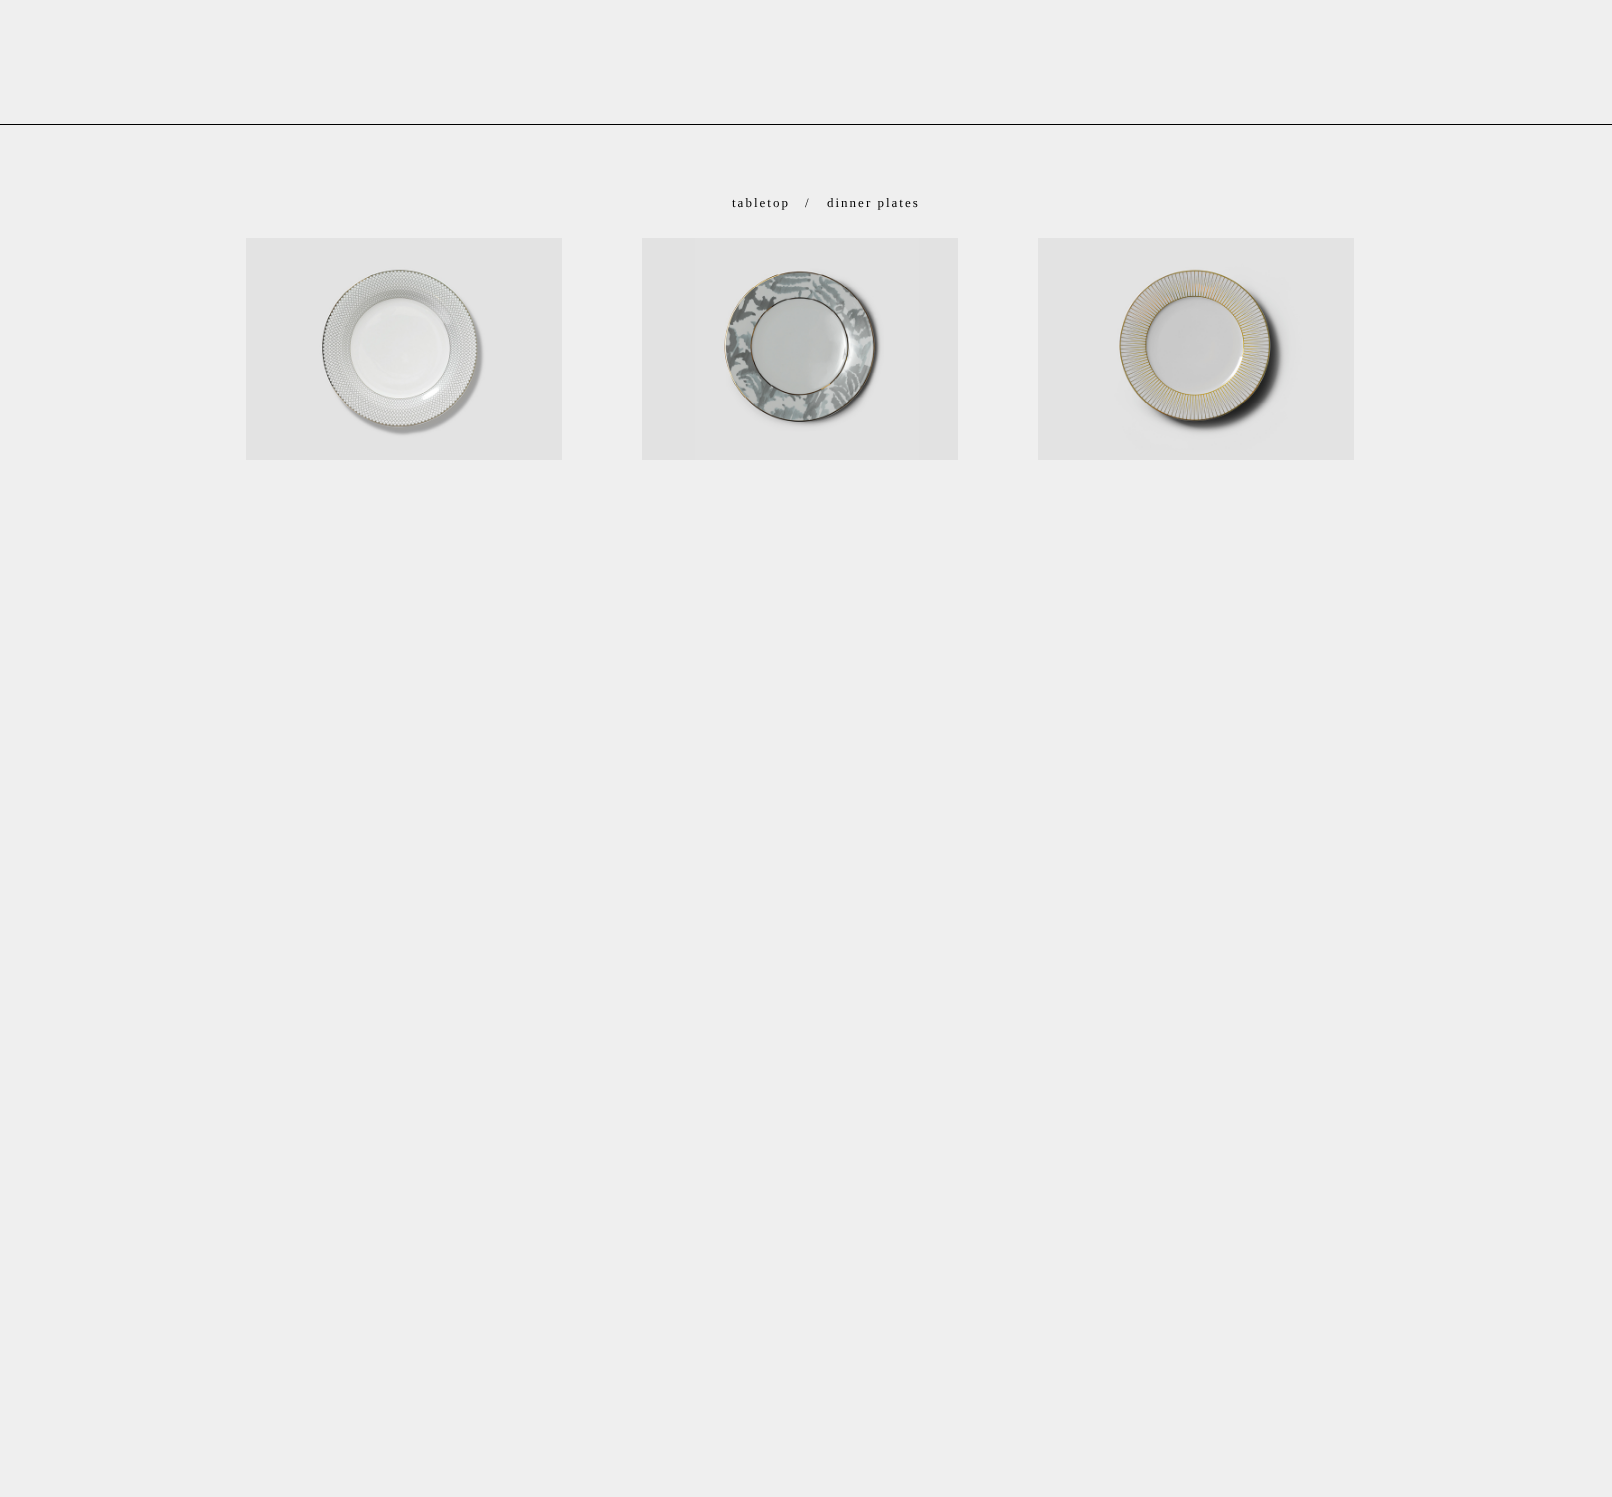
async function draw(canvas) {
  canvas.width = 1612
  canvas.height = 1497
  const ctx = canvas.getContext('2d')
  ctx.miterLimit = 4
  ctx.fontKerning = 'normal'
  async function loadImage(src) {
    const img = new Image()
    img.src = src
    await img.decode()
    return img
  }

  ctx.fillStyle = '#efefef'
  ctx.fillRect(0, 0, 1612, 1497)
  ctx.fillStyle = '#000'
  ctx.fillRect(0, 124, 1612, 1)
  ctx.letterSpacing = '2px'
  ctx.font = '13px Liberation Serif'
  ctx.fillText('tabletop', 732, 207)
  ctx.letterSpacing = '0px'
  ctx.fillText('/', 805, 207)
  ctx.letterSpacing = '2px'
  ctx.fillText('dinner plates', 827, 207)
  ctx.drawImage(await loadImage('image0.png'), 246, 238, 316, 222)
  ctx.drawImage(await loadImage('image1.png'), 642, 238, 316, 222)
  ctx.drawImage(await loadImage('image2.png'), 1038, 238, 316, 222)
}

draw(document.querySelector('canvas'))
